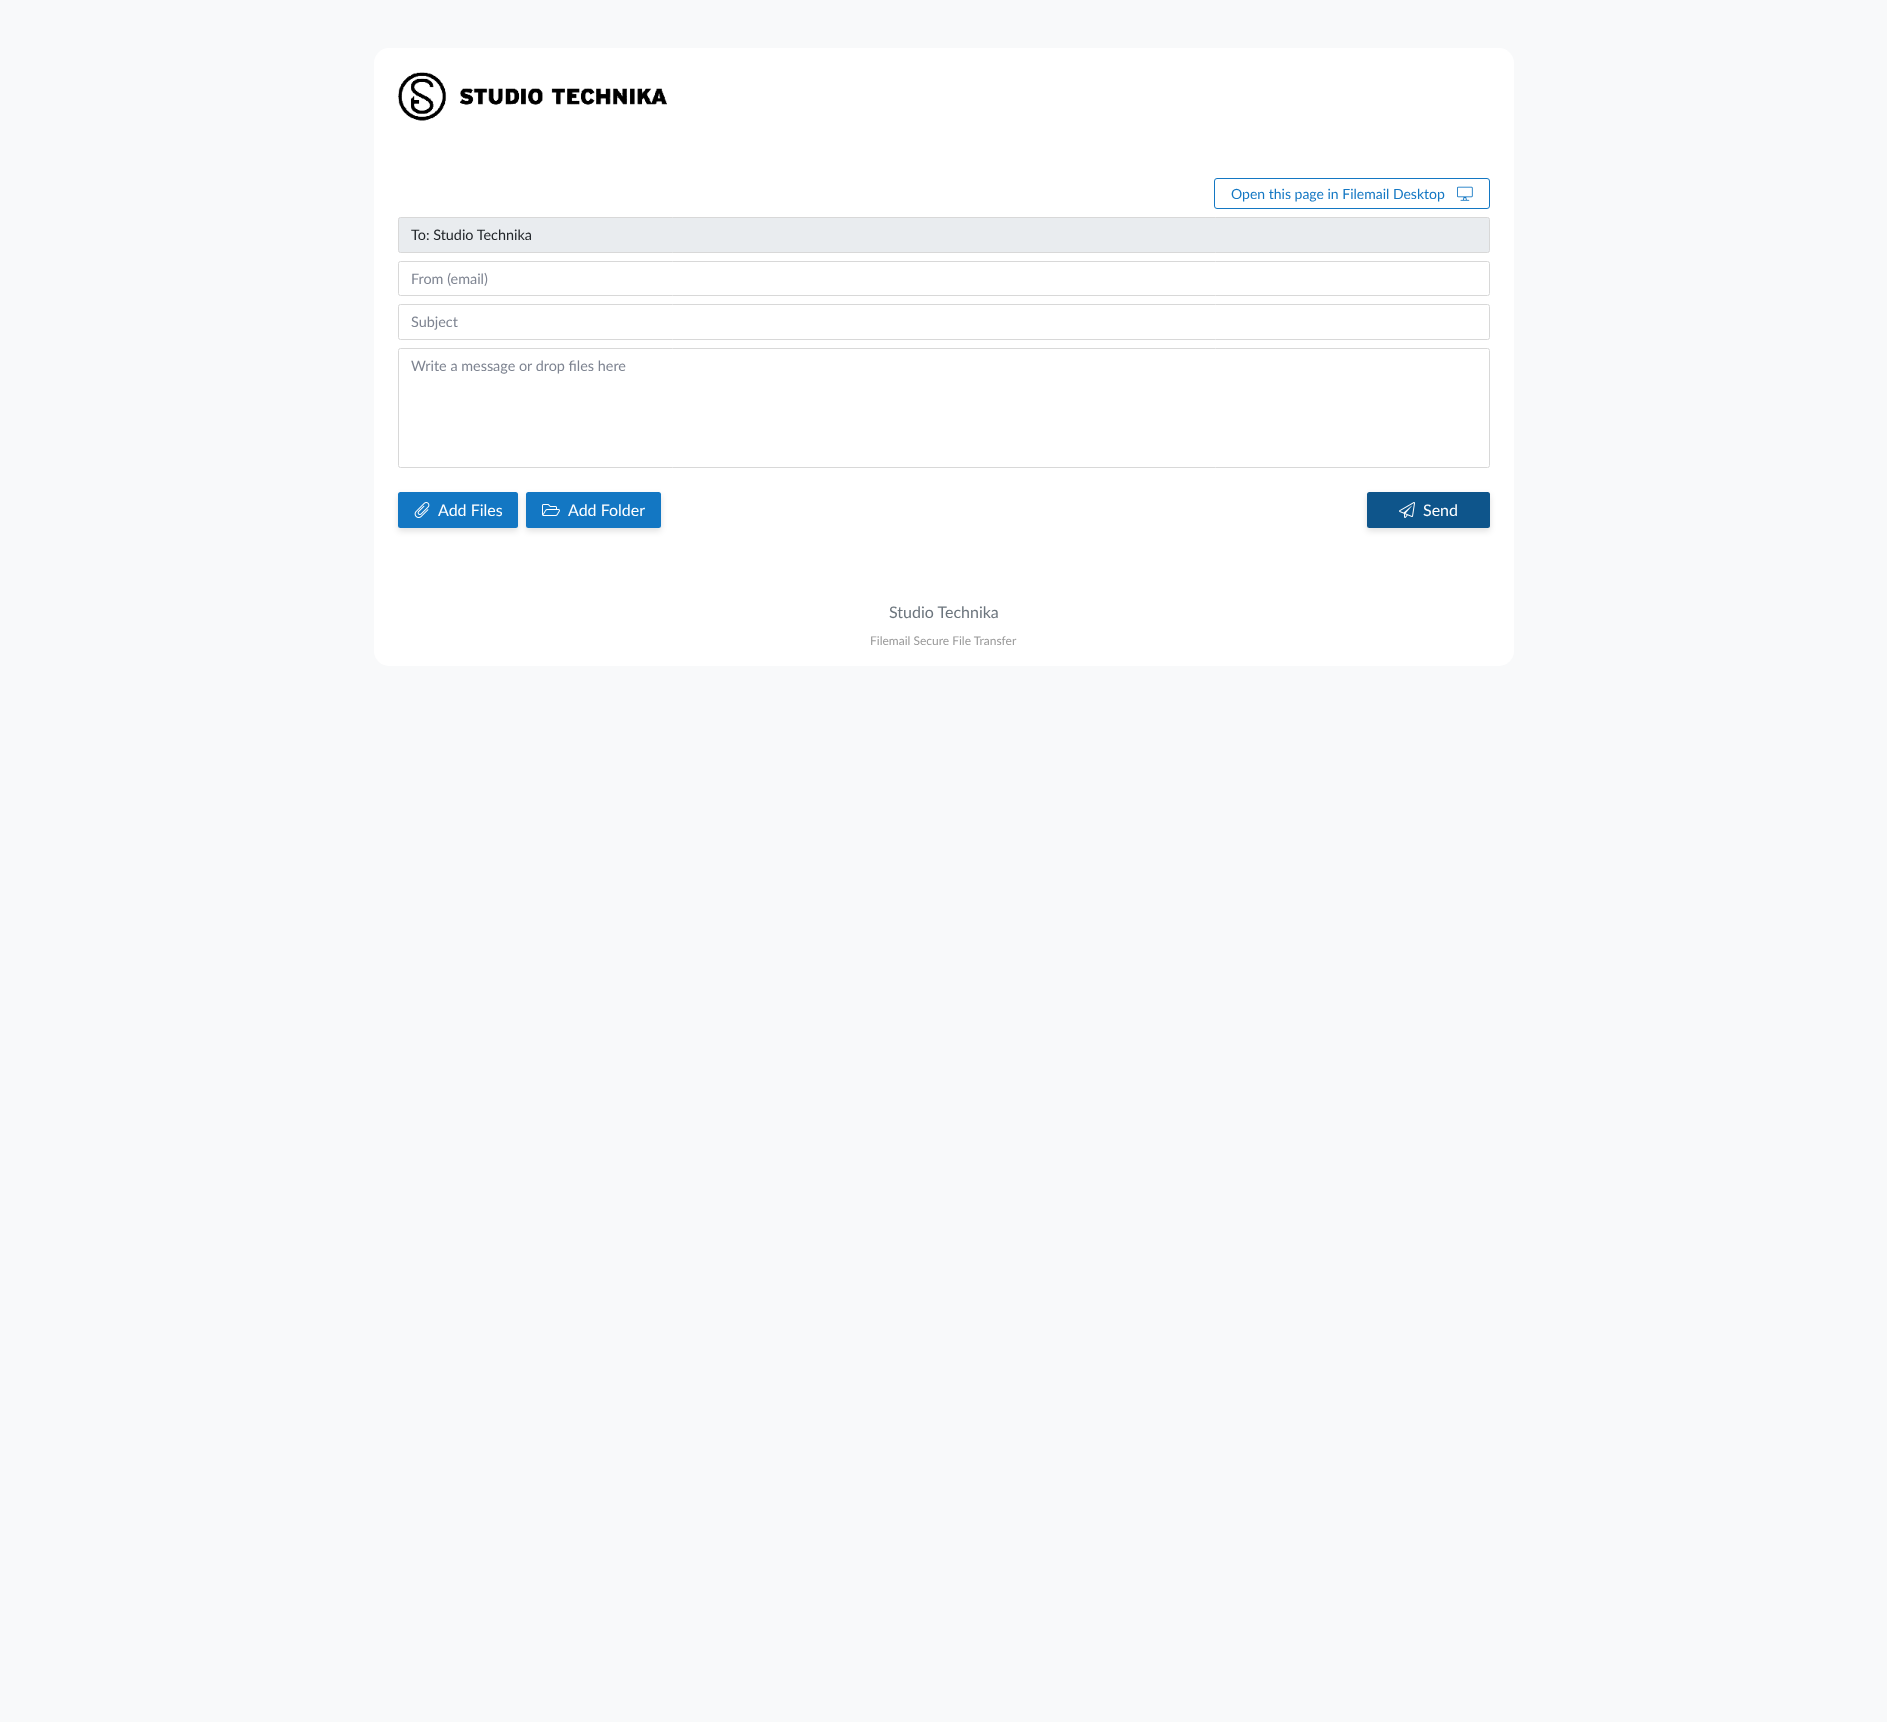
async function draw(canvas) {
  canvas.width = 1887
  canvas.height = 1722
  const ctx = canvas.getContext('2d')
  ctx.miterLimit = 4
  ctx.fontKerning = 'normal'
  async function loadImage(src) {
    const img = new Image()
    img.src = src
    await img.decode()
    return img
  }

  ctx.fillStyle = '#f8f9fa'
  ctx.fillRect(0, 0, 1887, 1722)
  ctx.fillStyle = '#fff'
  ctx.beginPath()
  ctx.roundRect(374, 48, 1140, 106, [15, 15, 0, 0])
  ctx.fill()
  ctx.drawImage(await loadImage('image0.png'), 398, 72, 269, 49)
  ctx.fillRect(374, 154, 1140, 430)
  ctx.beginPath()
  ctx.roundRect(1214.5, 178.5, 275, 30, 2.5)
  ctx.strokeStyle = '#1377c3'
  ctx.stroke()
  ctx.font = '14px Lato'
  ctx.fillStyle = '#1377c3'
  ctx.fillText('Open this page in Filemail Desktop', 1231, 199)
  ctx.drawImage(await loadImage('image1.png'), 1457, 186, 16, 15)
  ctx.fillStyle = '#e9ecef'
  ctx.beginPath()
  ctx.roundRect(398.5, 217.5, 1091, 35, 2)
  ctx.fill()
  ctx.strokeStyle = '#d8d8d8'
  ctx.stroke()
  ctx.font = '14.4px Lato'
  ctx.fillStyle = '#212529'
  ctx.fillText('To: Studio Technika', 411, 240)
  ctx.beginPath()
  ctx.roundRect(398.5, 261.5, 1091, 34, 2)
  ctx.stroke()
  ctx.fillStyle = '#7e8491'
  ctx.fillText('From (email)', 411, 284)
  ctx.beginPath()
  ctx.roundRect(398.5, 304.5, 1091, 35, 2)
  ctx.stroke()
  ctx.fillText('Subject', 411, 327)
  ctx.beginPath()
  ctx.roundRect(398.5, 348.5, 1091, 119, 2)
  ctx.stroke()
  ctx.fillText('Write a message or drop files here', 411, 371)
  ctx.fillStyle = '#0000001f'
  ctx.filter = 'blur(3px)'
  ctx.beginPath()
  ctx.roundRect(398, 495, 120, 36, 2.5)
  ctx.fill()
  ctx.filter = 'none'
  ctx.fillStyle = '#1377c3'
  ctx.beginPath()
  ctx.roundRect(398, 492, 120, 36, 2.5)
  ctx.fill()
  ctx.drawImage(await loadImage('image2.png'), 414, 502, 16, 16)
  ctx.font = '16px Lato'
  ctx.fillStyle = '#fff'
  ctx.fillText('Add Files', 438, 516)
  ctx.fillStyle = '#0000001f'
  ctx.filter = 'blur(3px)'
  ctx.beginPath()
  ctx.roundRect(526, 495, 135, 36, 2.5)
  ctx.fill()
  ctx.filter = 'none'
  ctx.fillStyle = '#1377c3'
  ctx.beginPath()
  ctx.roundRect(526, 492, 135, 36, 2.5)
  ctx.fill()
  ctx.drawImage(await loadImage('image3.png'), 542, 504, 18, 12)
  ctx.fillStyle = '#fff'
  ctx.fillText('Add Folder', 568, 516)
  ctx.fillStyle = '#0000001f'
  ctx.filter = 'blur(3px)'
  ctx.beginPath()
  ctx.roundRect(1367, 495, 123, 36, 2.5)
  ctx.fill()
  ctx.filter = 'none'
  ctx.fillStyle = '#0e558b'
  ctx.beginPath()
  ctx.roundRect(1367, 492, 123, 36, 2.5)
  ctx.fill()
  ctx.drawImage(await loadImage('image4.png'), 1399, 502, 16, 16)
  ctx.fillStyle = '#fff'
  ctx.fillText('Send', 1423, 516)
  ctx.beginPath()
  ctx.roundRect(374, 584, 1140, 82, [0, 0, 15, 15])
  ctx.fill()
  ctx.fillStyle = '#6c757d'
  ctx.fillText('Studio Technika', 889, 618)
  ctx.font = '12px Lato'
  ctx.fillStyle = '#999'
  ctx.fillText('Filemail Secure File Transfer', 870, 645)
}

draw(document.querySelector('canvas'))
